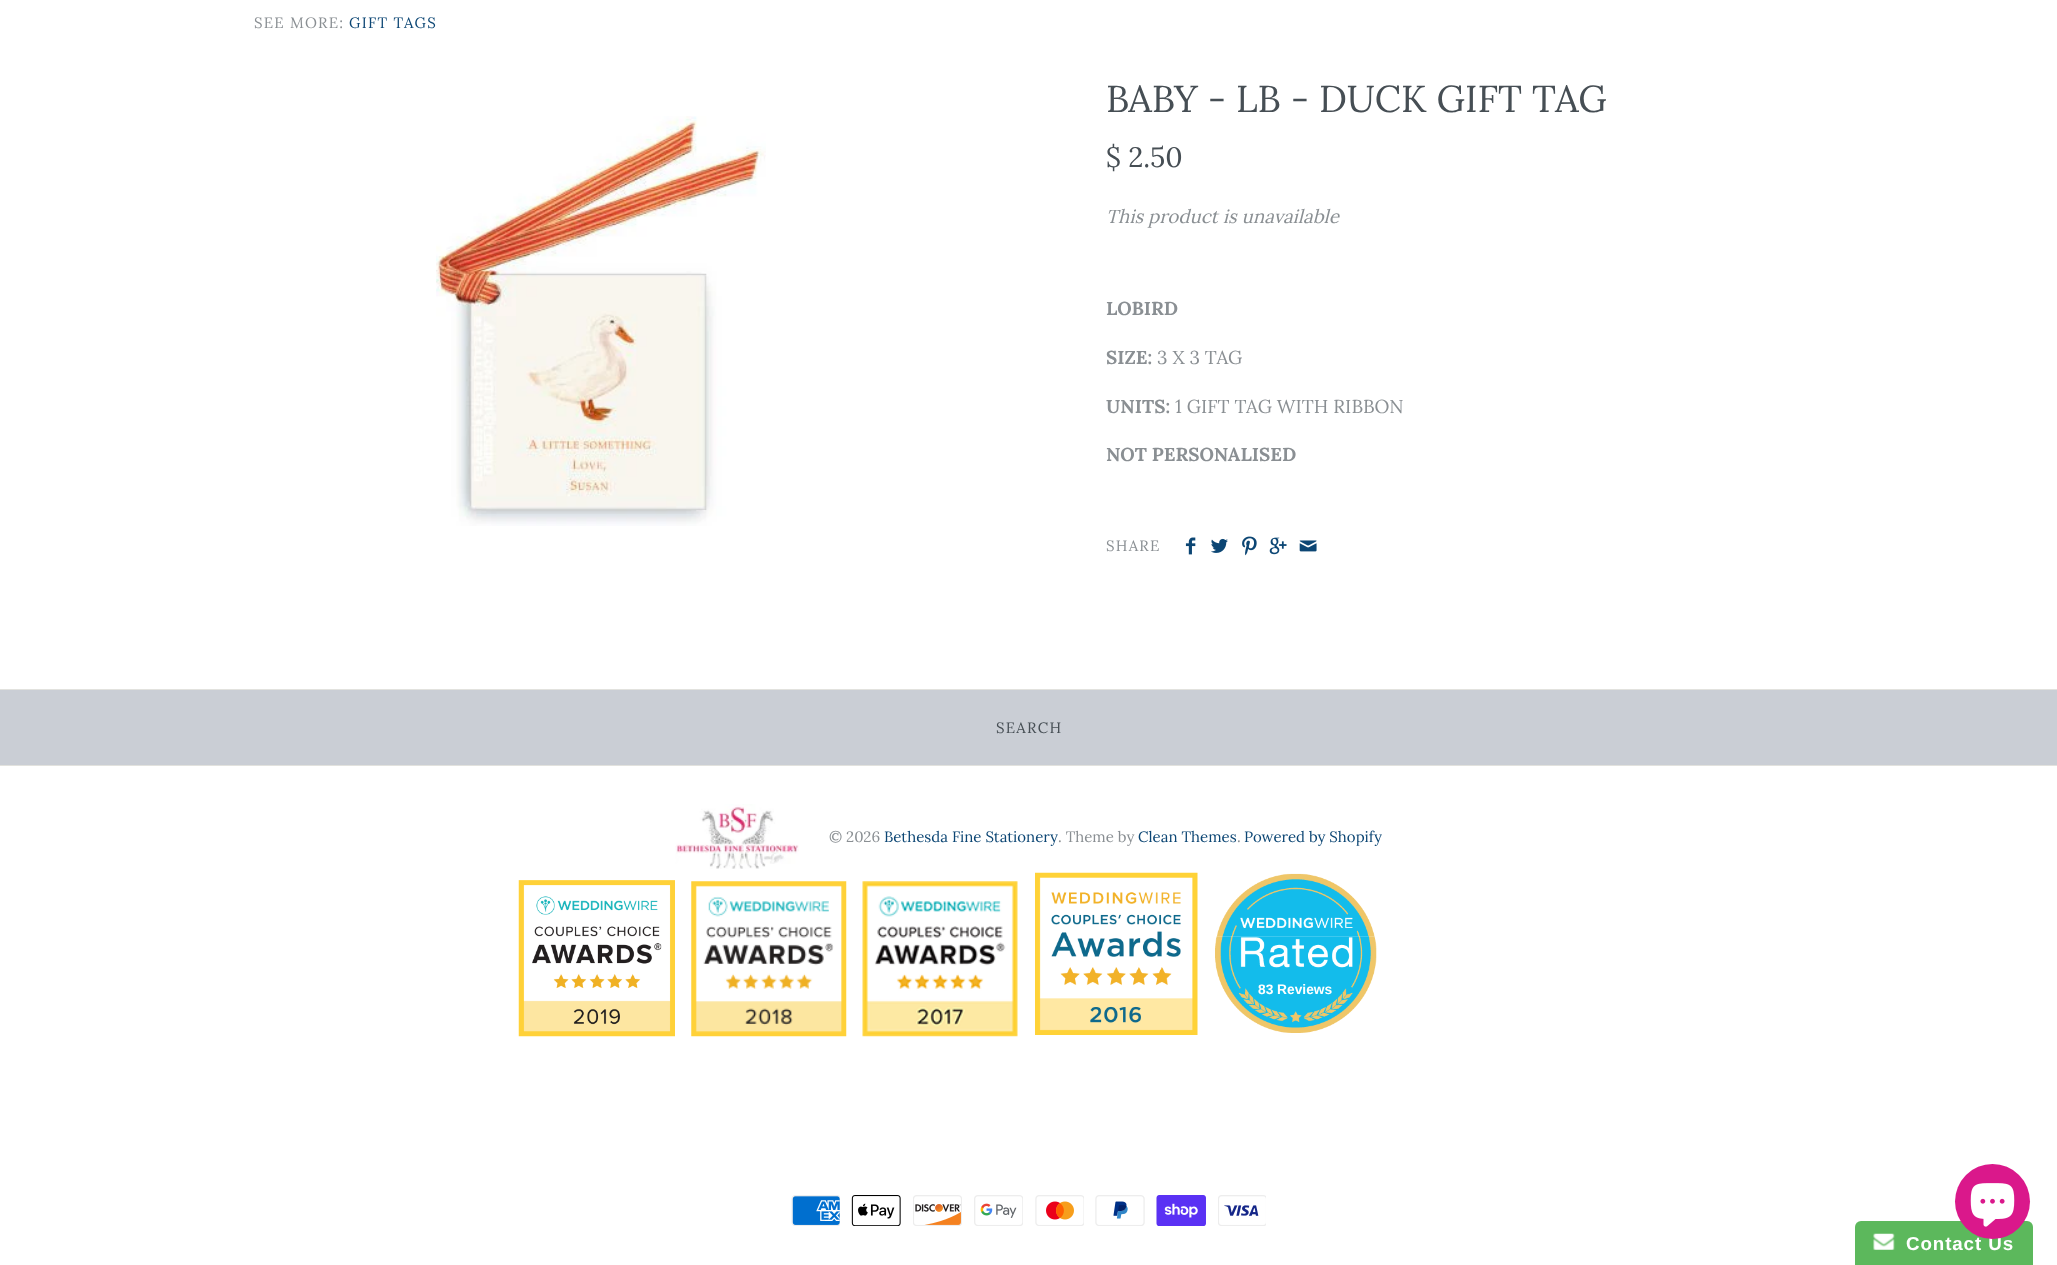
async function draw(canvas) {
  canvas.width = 2057
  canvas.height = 1265
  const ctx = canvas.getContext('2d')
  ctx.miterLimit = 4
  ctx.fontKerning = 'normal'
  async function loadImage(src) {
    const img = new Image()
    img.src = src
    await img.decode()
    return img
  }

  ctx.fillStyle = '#fff'
  ctx.fillRect(0, 0, 2057, 1265)
  ctx.letterSpacing = '1.25px'
  ctx.font = '15px Lora'
  ctx.fillStyle = '#8a8f93'
  ctx.fillText('SEE MORE:', 254, 28)
  ctx.fillStyle = '#0c4674'
  ctx.fillText('GIFT TAGS', 349, 28)
  ctx.drawImage(await loadImage('image0.png'), 436, 116, 330, 410)
  ctx.letterSpacing = '0px'
  ctx.font = '37.5px Lora'
  ctx.fillStyle = '#464e54'
  ctx.fillText('BABY - LB - DUCK GIFT TAG', 1106, 112)
  ctx.font = '28px Lora'
  ctx.fillText('$ 2.50', 1106, 167)
  ctx.font = 'italic 18.75px Lora'
  ctx.fillStyle = '#8a8f93'
  ctx.fillText('This product is unavailable', 1106, 223)
  ctx.font = 'bold 18.75px Lora'
  ctx.fillText('LOBIRD', 1106, 315)
  ctx.fillText('SIZE:', 1106, 364)
  ctx.font = '18.75px Lora'
  ctx.fillText('3 X 3 TAG', 1157, 364)
  ctx.font = 'bold 18.75px Lora'
  ctx.fillText('UNITS:', 1106, 413)
  ctx.font = '18.75px Lora'
  ctx.fillText(' 1 GIFT TAG WITH RIBBON', 1170, 413)
  ctx.font = 'bold 18.75px Lora'
  ctx.fillText('NOT PERSONALISED', 1106, 461)
  ctx.letterSpacing = '1.25px'
  ctx.font = '15px Lora'
  ctx.fillText('SHARE', 1106, 551)
  ctx.drawImage(await loadImage('image1.png'), 1185, 537, 11, 18)
  ctx.drawImage(await loadImage('image2.png'), 1211, 538, 17, 15)
  ctx.drawImage(await loadImage('image3.png'), 1242, 536, 15, 20)
  ctx.drawImage(await loadImage('image4.png'), 1269, 537, 18, 18)
  ctx.drawImage(await loadImage('image5.png'), 1299, 540, 18, 12)
  ctx.fillStyle = '#caced5'
  ctx.fillRect(0, 690, 2057, 75)
  ctx.fillStyle = '#e2e2de'
  ctx.fillRect(0, 689, 2057, 1)
  ctx.fillRect(0, 765, 2057, 1)
  ctx.fillStyle = '#464e54'
  ctx.fillText('SEARCH', 996, 733)
  ctx.drawImage(await loadImage('image6.png'), 675, 804, 124, 65)
  ctx.letterSpacing = '0px'
  ctx.fillStyle = '#8a8f93'
  ctx.fillText('© 2026', 829, 842)
  ctx.fillStyle = '#0c4674'
  ctx.fillText('Bethesda Fine Stationery', 884, 842)
  ctx.fillStyle = '#8a8f93'
  ctx.fillText('. Theme by', 1058, 842)
  ctx.fillStyle = '#0c4674'
  ctx.fillText('Clean Themes', 1138, 842)
  ctx.fillStyle = '#8a8f93'
  ctx.fillText('.', 1237, 842)
  ctx.fillStyle = '#0c4674'
  ctx.fillText('Powered by Shopify', 1244, 842)
  ctx.drawImage(await loadImage('image7.png'), 518, 880, 157, 157)
  ctx.drawImage(await loadImage('image8.png'), 691, 881, 156, 156)
  ctx.drawImage(await loadImage('image9.png'), 862, 881, 156, 156)
  ctx.drawImage(await loadImage('image10.png'), 1035, 872, 163, 163)
  ctx.drawImage(await loadImage('image11.png'), 1217, 873, 158, 64)
  ctx.drawImage(await loadImage('image12.png'), 1215, 936, 162, 97)
  ctx.font = 'bold 13.75px Liberation Sans'
  ctx.fillStyle = '#fff'
  ctx.fillText('83 Reviews', 1258, 994)
  ctx.drawImage(await loadImage('image13.png'), 791, 1195, 49, 31)
  ctx.drawImage(await loadImage('image14.png'), 851, 1195, 50, 31)
  ctx.drawImage(await loadImage('image15.png'), 913, 1195, 49, 31)
  ctx.drawImage(await loadImage('image16.png'), 974, 1195, 49, 31)
  ctx.drawImage(await loadImage('image17.png'), 1035, 1195, 49, 31)
  ctx.drawImage(await loadImage('image18.png'), 1095, 1195, 50, 31)
  ctx.drawImage(await loadImage('image19.png'), 1156, 1195, 50, 31)
  ctx.drawImage(await loadImage('image20.png'), 1218, 1195, 48, 31)
  ctx.fillStyle = '#5cb85c'
  ctx.beginPath()
  ctx.roundRect(1855, 1221, 178, 44, [6, 6, 0, 0])
  ctx.fill()
  ctx.letterSpacing = '0.9px'
  ctx.font = 'bold 18.75px Liberation Sans'
  ctx.fillStyle = '#fff'
  ctx.fillText('Contact Us', 1906, 1250)
  ctx.fillStyle = '#da188b'
  ctx.beginPath()
  ctx.arc(1992.5, 1201.5, 37.5, 0, 2 * Math.PI)
  ctx.fill()
  ctx.drawImage(await loadImage('image21.png'), 1970, 1183, 45, 44)
  ctx.drawImage(await loadImage('image22.png'), 1873, 1233, 22, 17)
}

draw(document.querySelector('canvas'))
